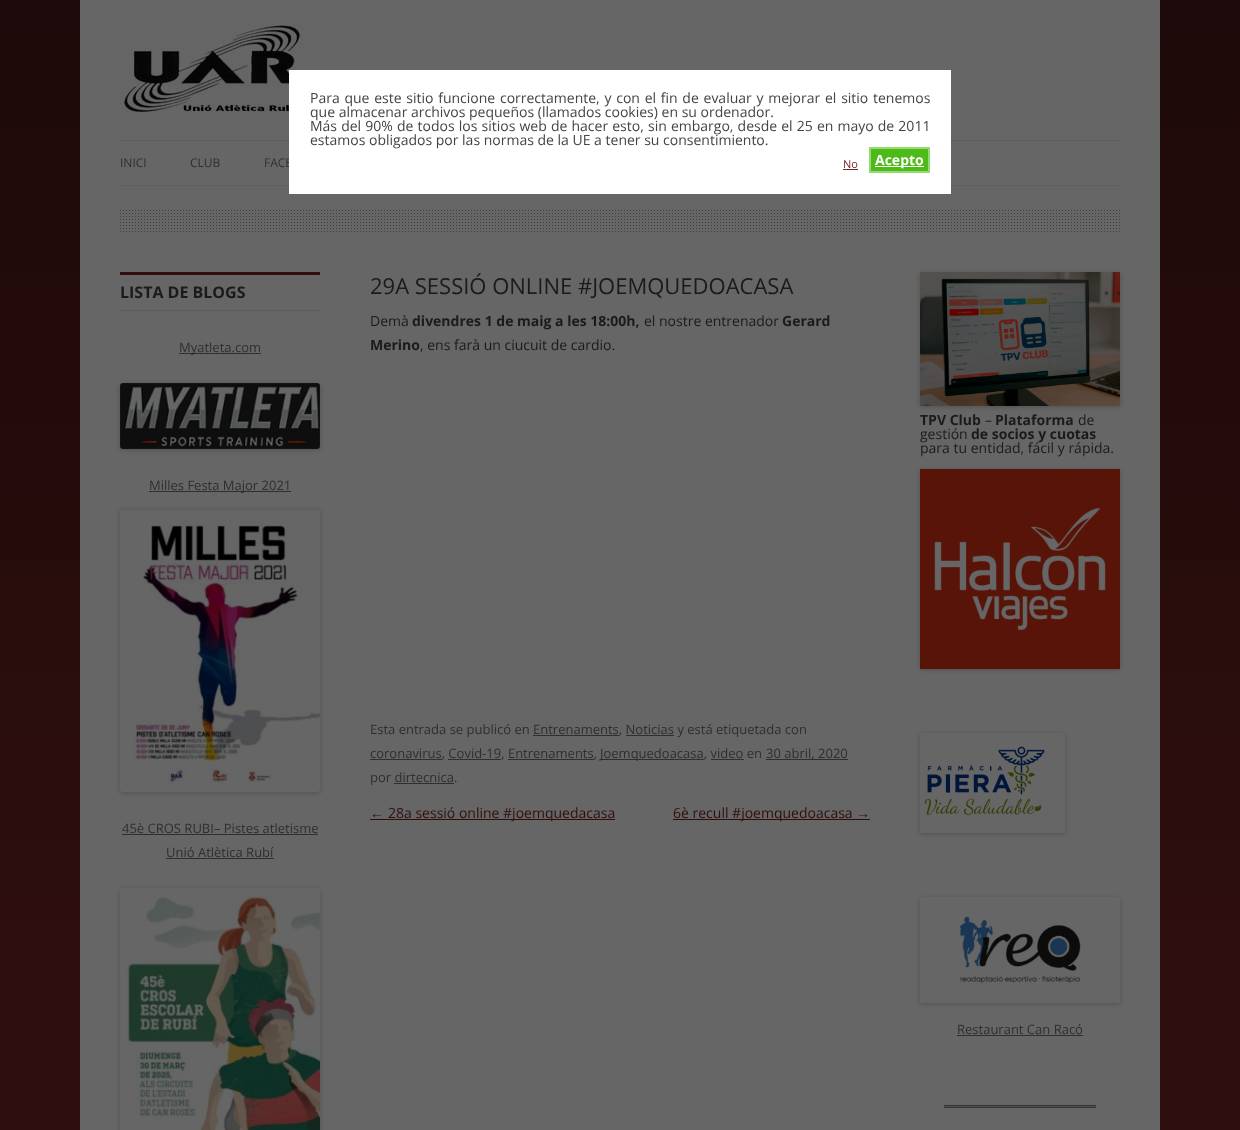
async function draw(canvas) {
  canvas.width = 1240
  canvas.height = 1130
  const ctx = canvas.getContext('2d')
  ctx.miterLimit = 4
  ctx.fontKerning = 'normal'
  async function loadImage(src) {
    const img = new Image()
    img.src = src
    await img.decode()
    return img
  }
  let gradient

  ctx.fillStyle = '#fff'
  ctx.fillRect(0, 0, 1240, 1130)
  gradient = ctx.createLinearGradient(620, 0, 620, 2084)
  gradient.addColorStop(0, '#1d0909')
  gradient.addColorStop(0.45, '#2e0e0e')
  ctx.fillStyle = gradient
  ctx.fillRect(0, 0, 1240, 1130)
  ctx.fillStyle = '#666'
  ctx.fillRect(80, 0, 1080, 1130)
  ctx.drawImage(await loadImage('image0.png'), 120, 24, 184, 88)
  ctx.fillStyle = '#5f5f5f'
  ctx.fillRect(120, 140, 1000, 1)
  ctx.fillRect(120, 185, 1000, 1)
  ctx.font = '12px Open Sans'
  ctx.fillStyle = '#2f2f2f'
  ctx.fillText('FACE', 264, 167)
  ctx.fillStyle = '#fff'
  ctx.fillRect(289, 70, 662, 124)
  ctx.wordSpacing = '1.1px'
  ctx.font = '14px Open Sans'
  ctx.fillStyle = '#444'
  ctx.fillText('Para que este sitio funcione correctamente, y con el fin de evaluar y mejorar el sitio tenemos', 310, 103)
  ctx.wordSpacing = '0px'
  ctx.fillText('que almacenar archivos pequeños (llamados cookies) en su ordenador.', 310, 117)
  ctx.wordSpacing = '0.5px'
  ctx.fillText('Más del 90% de todos los sitios web de hacer esto, sin embargo, desde el 25 en mayo de 2011', 310, 131)
  ctx.wordSpacing = '0px'
  ctx.fillText('estamos obligados por las normas de la UE a tener su consentimiento.', 310, 145)
  ctx.font = '11px Open Sans'
  ctx.fillStyle = '#7a2222'
  ctx.fillText('No', 843, 168)
  ctx.fillRect(843, 169, 15, 1)
  ctx.fillStyle = '#4cbb17'
  ctx.beginPath()
  ctx.rect(870, 148, 59, 24)
  ctx.fill()
  ctx.strokeStyle = '#93db70'
  ctx.lineWidth = 2
  ctx.stroke()
  ctx.fillStyle = '#fff'
  ctx.fillRect(875, 166, 49, 1)
  ctx.font = 'bold 14px Open Sans'
  ctx.fillText('Acepto', 875, 165)
  ctx.font = '12px Open Sans'
  ctx.fillStyle = '#2f2f2f'
  ctx.fillText('INICI', 120, 167)
  ctx.fillText('CLUB', 190, 167)
  ctx.drawImage(await loadImage('image1.png'), 120, 210, 1000, 22)
  ctx.fillStyle = '#310e0e'
  ctx.fillRect(120, 272, 200, 3)
  ctx.beginPath()
  ctx.moveTo(120, 310.5)
  ctx.lineTo(320, 310.5)
  ctx.strokeStyle = '#525252'
  ctx.lineWidth = 1
  ctx.setLineDash([1, 1])
  ctx.stroke()
  ctx.font = 'bold 16px Open Sans'
  ctx.fillStyle = '#1b1b1b'
  ctx.fillText('LISTA DE BLOGS', 120, 298)
  ctx.fillStyle = '#2f2f2f'
  ctx.fillRect(179, 353, 82, 1)
  ctx.font = '13px Open Sans'
  ctx.fillText('Myatleta.com', 179, 352)
  ctx.fillStyle = '#00000033'
  ctx.filter = 'blur(2px)'
  ctx.beginPath()
  ctx.roundRect(120, 384, 200, 66, 3)
  ctx.fill()
  ctx.filter = 'none'
  ctx.drawImage(await loadImage('image2.png'), 120, 383, 200, 66)
  ctx.fillStyle = '#2f2f2f'
  ctx.fillRect(149, 491, 142, 1)
  ctx.fillText('Milles Festa Major 2021', 149, 490)
  ctx.fillStyle = '#00000033'
  ctx.filter = 'blur(2px)'
  ctx.beginPath()
  ctx.roundRect(120, 510, 200, 283, 3)
  ctx.fill()
  ctx.filter = 'none'
  ctx.drawImage(await loadImage('image3.png'), 120, 510, 200, 282)
  ctx.fillStyle = '#2f2f2f'
  ctx.fillText('45è CROS RUBI– Pistes atletisme', 122, 833)
  ctx.fillRect(122, 834, 196, 1)
  ctx.fillText('Unió Atlètica Rubí', 166, 857)
  ctx.fillRect(166, 858, 108, 1)
  ctx.fillStyle = '#00000033'
  ctx.filter = 'blur(2px)'
  ctx.beginPath()
  ctx.roundRect(120, 889, 200, 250, 3)
  ctx.fill()
  ctx.filter = 'none'
  ctx.drawImage(await loadImage('image4.png'), 120, 888, 200, 242)
  ctx.font = '22px Open Sans'
  ctx.fillStyle = '#1b1b1b'
  ctx.fillText('29A SESSIÓ ONLINE #JOEMQUEDOACASA', 370, 294)
  ctx.font = '14px Open Sans'
  ctx.fillText('Demà', 370, 326)
  ctx.font = 'bold 14px Open Sans'
  ctx.fillText('divendres 1 de maig a les 18:00h,', 412, 326)
  ctx.font = '14px Open Sans'
  ctx.fillText('el nostre entrenador', 644, 326)
  ctx.font = 'bold 14px Open Sans'
  ctx.fillText('Gerard', 782, 326)
  ctx.fillText('Merino', 370, 350)
  ctx.font = '14px Open Sans'
  ctx.fillText(', ens farà un ciucuit de cardio.', 420, 350)
  ctx.font = '13px Open Sans'
  ctx.fillStyle = '#2f2f2f'
  ctx.fillText('Esta entrada se publicó en Entrenaments, Noticias y está etiquetada con', 370, 734)
  ctx.fillRect(533, 735, 86, 1)
  ctx.fillRect(626, 735, 48, 1)
  ctx.fillRect(370, 759, 72, 1)
  ctx.fillText('coronavirus, Covid-19, Entrenaments,', 370, 758)
  ctx.fillRect(600, 759, 104, 1)
  ctx.fillText('Joemquedoacasa, video en', 600, 758)
  ctx.fillRect(766, 759, 82, 1)
  ctx.fillText('30 abril, 2020', 766, 758)
  ctx.fillRect(448, 759, 53, 1)
  ctx.fillRect(508, 759, 86, 1)
  ctx.fillRect(711, 759, 33, 1)
  ctx.fillText('por dirtecnica.', 370, 782)
  ctx.fillRect(394, 783, 60, 1)
  ctx.font = '14px Liberation Sans'
  ctx.fillStyle = '#310e0e'
  ctx.fillText('←', 370, 818)
  ctx.fillRect(370, 819, 245, 1)
  ctx.font = '14px Open Sans'
  ctx.fillText('28a sessió online #joemquedacasa', 388, 818)
  ctx.fillRect(673, 819, 197, 1)
  ctx.fillText('6è recull #joemquedoacasa', 673, 818)
  ctx.font = '14px Liberation Sans'
  ctx.fillText('→', 856, 818)
  ctx.fillStyle = '#00000033'
  ctx.filter = 'blur(2px)'
  ctx.beginPath()
  ctx.rect(920, 273, 200, 134)
  ctx.fill()
  ctx.filter = 'none'
  ctx.drawImage(await loadImage('image5.png'), 920, 272, 200, 134)
  ctx.font = 'bold 14px Open Sans'
  ctx.fillStyle = '#1b1b1b'
  ctx.fillText('TPV Club', 920, 425)
  ctx.font = '14px Open Sans'
  ctx.fillText('–', 985, 425)
  ctx.font = 'bold 14px Open Sans'
  ctx.fillText('Plataforma', 995, 425)
  ctx.font = '14px Open Sans'
  ctx.fillText('de', 1078, 425)
  ctx.fillText('gestión', 920, 439)
  ctx.font = 'bold 14px Open Sans'
  ctx.fillText('de socios y cuotas', 971, 439)
  ctx.font = '14px Open Sans'
  ctx.fillText('para tu entidad, fácil y rápida.', 920, 453)
  ctx.fillStyle = '#00000033'
  ctx.filter = 'blur(2px)'
  ctx.beginPath()
  ctx.rect(920, 470, 200, 200)
  ctx.fill()
  ctx.filter = 'none'
  ctx.drawImage(await loadImage('image6.png'), 920, 469, 200, 200)
  ctx.save()
  ctx.beginPath()
  ctx.moveTo(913, 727)
  ctx.lineTo(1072, 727)
  ctx.lineTo(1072, 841)
  ctx.lineTo(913, 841)
  ctx.closePath()
  ctx.moveTo(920, 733)
  ctx.lineTo(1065, 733)
  ctx.lineTo(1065, 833)
  ctx.lineTo(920, 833)
  ctx.closePath()
  ctx.clip('evenodd')
  ctx.filter = 'blur(2px)'
  ctx.beginPath()
  ctx.rect(920, 734, 145, 100)
  ctx.fill()
  ctx.filter = 'none'
  ctx.restore()
  ctx.drawImage(await loadImage('image7.png'), 924, 746, 121, 69)
  ctx.save()
  ctx.beginPath()
  ctx.moveTo(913, 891)
  ctx.lineTo(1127, 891)
  ctx.lineTo(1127, 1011)
  ctx.lineTo(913, 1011)
  ctx.closePath()
  ctx.moveTo(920, 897)
  ctx.lineTo(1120, 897)
  ctx.lineTo(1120, 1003)
  ctx.lineTo(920, 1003)
  ctx.closePath()
  ctx.clip('evenodd')
  ctx.filter = 'blur(2px)'
  ctx.beginPath()
  ctx.rect(920, 898, 200, 106)
  ctx.fill()
  ctx.filter = 'none'
  ctx.restore()
  ctx.drawImage(await loadImage('image8.png'), 959, 916, 122, 67)
  ctx.font = '13px Open Sans'
  ctx.fillStyle = '#2f2f2f'
  ctx.fillText('Restaurant Can Racó', 957, 1034)
  ctx.fillRect(957, 1035, 126, 1)
  ctx.fillStyle = '#525252'
  ctx.fillRect(944, 1106, 152, 1)
  ctx.fillStyle = '#333'
  ctx.fillRect(944, 1105, 152, 1)
  ctx.fillRect(944, 1107, 152, 1)
}

draw(document.querySelector('canvas'))
